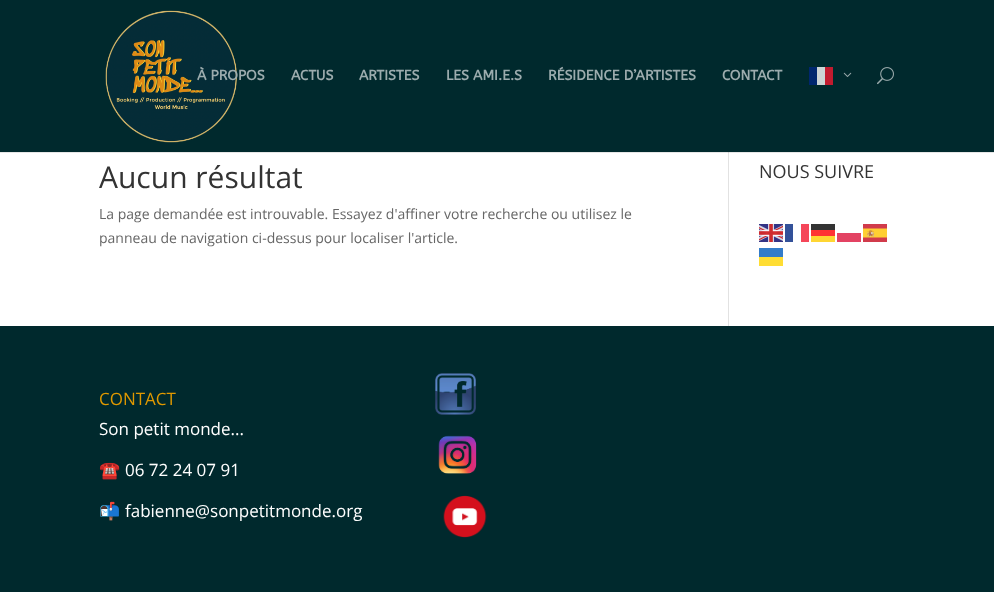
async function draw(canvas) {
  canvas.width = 994
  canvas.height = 592
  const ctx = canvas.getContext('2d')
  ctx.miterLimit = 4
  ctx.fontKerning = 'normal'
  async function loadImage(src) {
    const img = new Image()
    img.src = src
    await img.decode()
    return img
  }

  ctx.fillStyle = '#fff'
  ctx.fillRect(0, 0, 994, 592)
  ctx.fillStyle = '#e6e6e6'
  ctx.fillRect(0, 152, 994, 1)
  ctx.fillStyle = '#00292d'
  ctx.fillRect(0, 0, 994, 152)
  ctx.drawImage(await loadImage('image0.png'), 105, 10, 133, 133)
  ctx.font = 'bold 14px ABeeZee'
  ctx.fillStyle = '#9cacae'
  ctx.fillText('À PROPOS', 197, 80)
  ctx.fillText('ACTUS', 291, 80)
  ctx.fillText('ARTISTES', 359, 80)
  ctx.fillText('LES AMI.E.S', 446, 80)
  ctx.fillText('RÉSIDENCE D’ARTISTES', 548, 80)
  ctx.fillText('CONTACT', 722, 80)
  ctx.fillStyle = '#00276f'
  ctx.fillRect(809, 67, 8, 18)
  ctx.fillStyle = '#ccd4d5'
  ctx.fillRect(817, 67, 8, 18)
  ctx.fillStyle = '#c21b2f'
  ctx.fillRect(825, 67, 8, 18)
  ctx.drawImage(await loadImage('image1.png'), 843, 72, 9, 5)
  ctx.drawImage(await loadImage('image2.png'), 877, 67, 17, 18)
  ctx.fillStyle = '#e2e2e2'
  ctx.fillRect(728, 153, 1, 173)
  ctx.fillStyle = '#cbcbcb'
  ctx.fillRect(728, 152, 1, 1)
  ctx.font = '30px Open Sans'
  ctx.fillStyle = '#333'
  ctx.fillText('Aucun résultat', 99, 188)
  ctx.font = '14px Open Sans'
  ctx.fillStyle = '#666'
  ctx.fillText('La page demandée est introuvable. Essayez d\'affiner votre recherche ou utilisez le', 99, 219)
  ctx.fillText('panneau de navigation ci-dessus pour localiser l\'article.', 99, 243)
  ctx.font = '18px Open Sans'
  ctx.fillStyle = '#333'
  ctx.fillText('NOUS SUIVRE', 759, 178)
  ctx.drawImage(await loadImage('image3.png'), 759, 224, 24, 18)
  ctx.fillStyle = '#335199'
  ctx.fillRect(785, 224, 8, 18)
  ctx.fillStyle = '#f54659'
  ctx.fillRect(801, 224, 8, 18)
  ctx.fillStyle = '#333'
  ctx.fillRect(811, 224, 24, 6)
  ctx.drawImage(await loadImage('image4.png'), 863, 224, 24, 18)
  ctx.fillStyle = '#f33'
  ctx.fillRect(811, 230, 24, 6)
  ctx.fillStyle = '#e34363'
  ctx.fillRect(837, 233, 24, 9)
  ctx.fillStyle = '#ffd633'
  ctx.fillRect(811, 236, 24, 6)
  ctx.fillStyle = '#337cc9'
  ctx.fillRect(759, 248, 24, 9)
  ctx.fillStyle = '#fd3'
  ctx.fillRect(759, 257, 24, 9)
  ctx.fillStyle = '#00292d'
  ctx.fillRect(0, 326, 994, 266)
  ctx.font = '17px Open Sans'
  ctx.fillStyle = '#e09900'
  ctx.fillText('CONTACT', 99, 405)
  ctx.fillStyle = '#fff'
  ctx.fillText('Son petit monde...', 99, 435)
  ctx.font = '17px Noto Color Emoji'
  ctx.fillText('☎️', 99, 476)
  ctx.font = '17px Open Sans'
  ctx.fillText('06 72 24 07 91', 125, 476)
  ctx.font = '17px Noto Color Emoji'
  ctx.fillText('📬', 99, 517)
  ctx.font = '17px Open Sans'
  ctx.fillText('fabienne@sonpetitmonde.org', 125, 517)
  ctx.drawImage(await loadImage('image5.png'), 435, 373, 41, 42)
  ctx.drawImage(await loadImage('image6.png'), 438, 435, 39, 39)
  ctx.drawImage(await loadImage('image7.png'), 443, 495, 44, 43)
}

draw(document.querySelector('canvas'))
